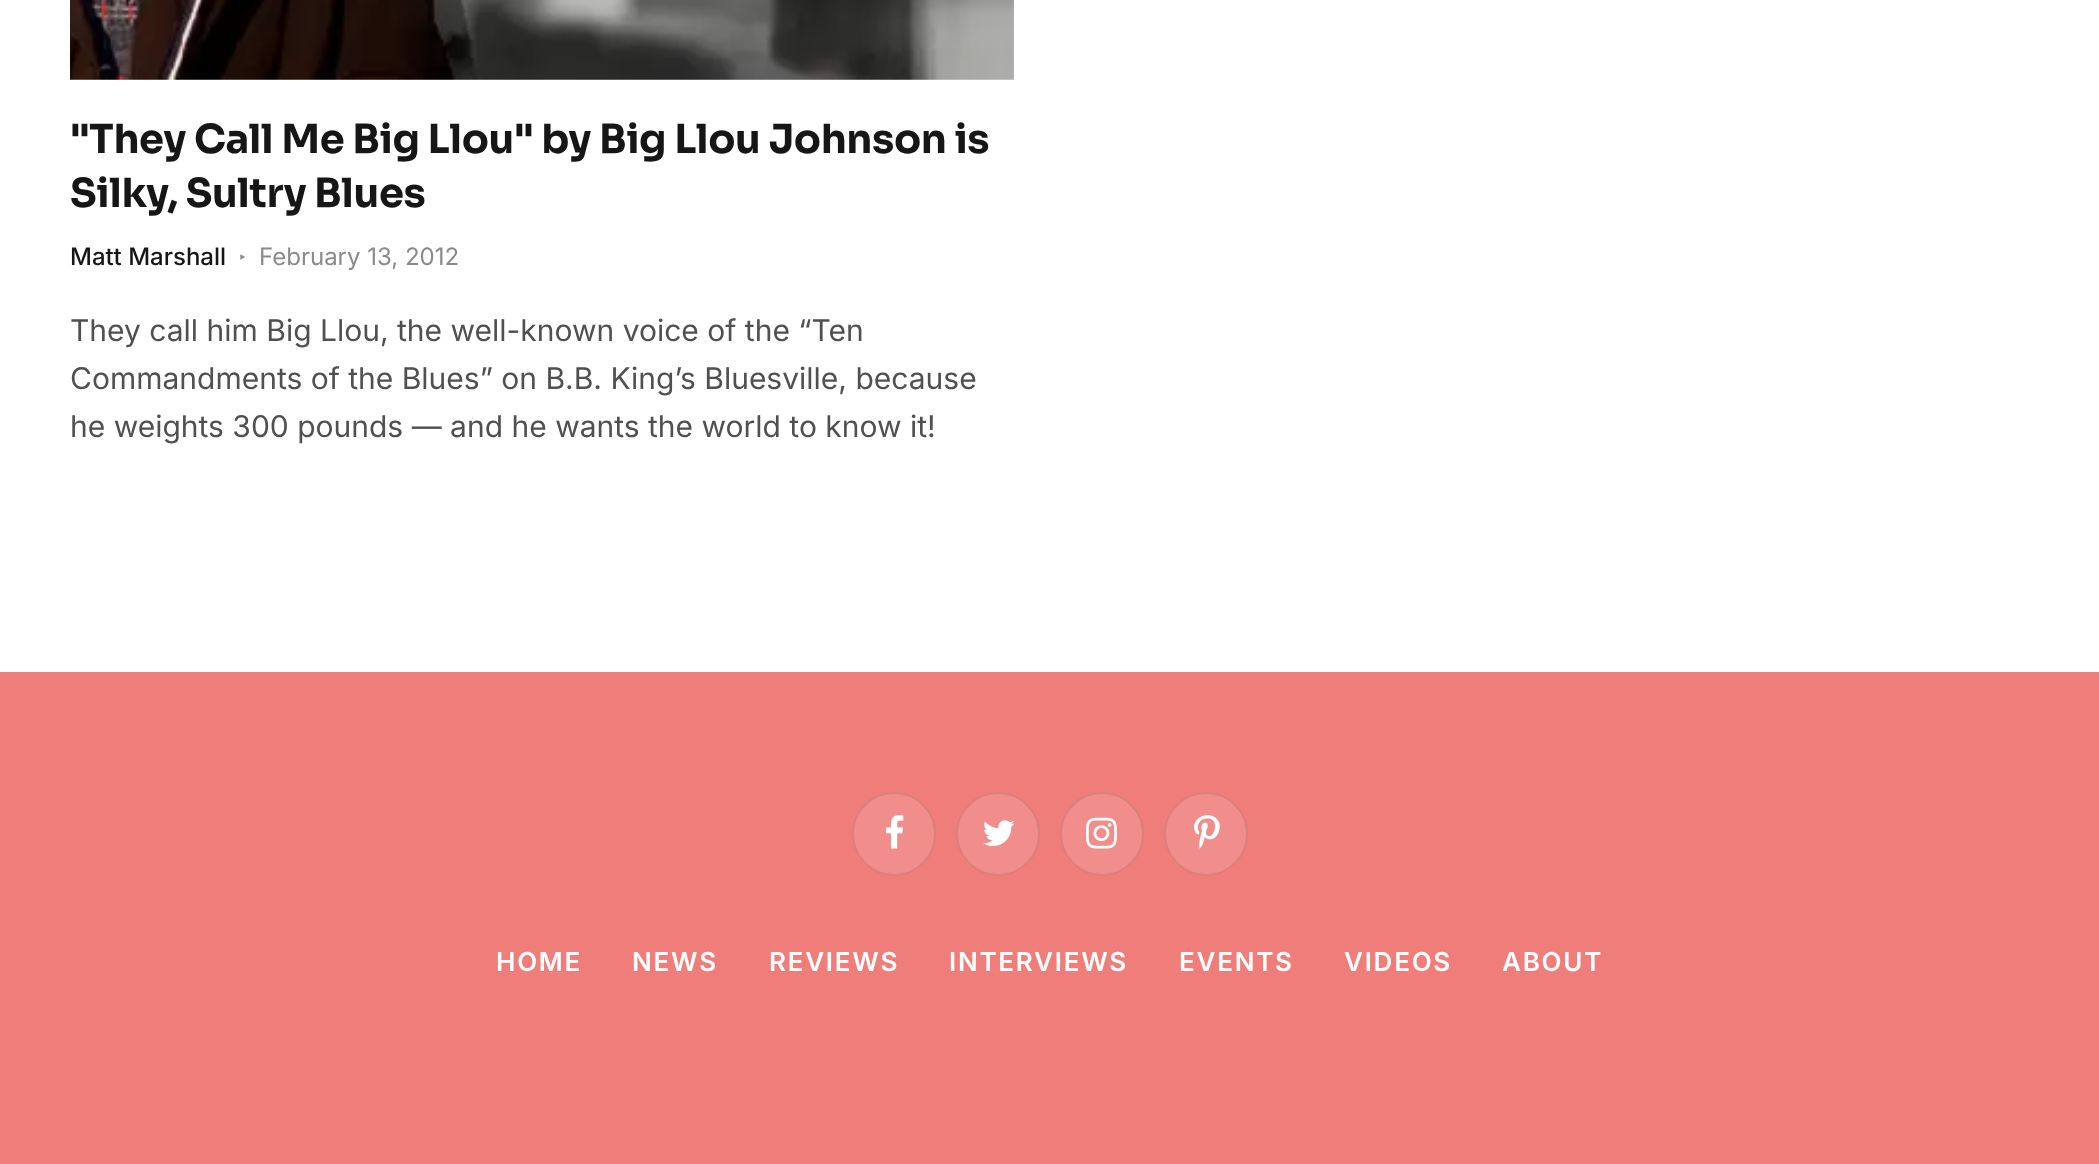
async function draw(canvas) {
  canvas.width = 2099
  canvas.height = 1164
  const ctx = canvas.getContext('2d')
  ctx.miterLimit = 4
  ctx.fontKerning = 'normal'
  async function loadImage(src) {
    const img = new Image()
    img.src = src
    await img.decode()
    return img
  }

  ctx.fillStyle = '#fff'
  ctx.fillRect(0, 0, 2099, 1164)
  ctx.drawImage(await loadImage('image0.png'), 70, 0, 944, 80)
  ctx.letterSpacing = '-0.4px'
  ctx.font = 'bold 40px Sora'
  ctx.fillStyle = '#161616'
  ctx.fillText('"They Call Me Big Llou" by Big Llou Johnson is', 70, 153)
  ctx.fillText('Silky, Sultry Blues', 70, 207)
  ctx.letterSpacing = '0px'
  ctx.font = '500 24px Inter'
  ctx.fillText('Matt Marshall', 70, 265)
  ctx.font = '19px Noto Sans'
  ctx.fillStyle = '#8a8a8a'
  ctx.fillText('‣', 239, 264)
  ctx.font = '24px Inter'
  ctx.fillText('February 13, 2012', 259, 265)
  ctx.font = '30px Inter'
  ctx.fillStyle = '#505050'
  ctx.fillText('They call him Big Llou, the well-known voice of the “Ten', 70, 341)
  ctx.fillText('Commandments of the Blues” on B.B. King’s Bluesville, because', 70, 389)
  ctx.fillText('he weights 300 pounds — and he wants the world to know it!', 70, 437)
  ctx.fillStyle = '#ef7e7a'
  ctx.fillRect(0, 672, 2099, 492)
  ctx.fillStyle = '#f18d8a'
  ctx.beginPath()
  ctx.arc(894, 834, 42, 0, 2 * Math.PI)
  ctx.fill()
  ctx.beginPath()
  ctx.arc(894, 834, 41, 0, 2 * Math.PI)
  ctx.strokeStyle = '#00000017'
  ctx.lineWidth = 2
  ctx.stroke()
  ctx.drawImage(await loadImage('image1.png'), 885, 815, 19, 34)
  ctx.beginPath()
  ctx.arc(998, 834, 42, 0, 2 * Math.PI)
  ctx.fill()
  ctx.beginPath()
  ctx.arc(998, 834, 41, 0, 2 * Math.PI)
  ctx.stroke()
  ctx.drawImage(await loadImage('image2.png'), 983, 820, 32, 26)
  ctx.beginPath()
  ctx.arc(1102, 834, 42, 0, 2 * Math.PI)
  ctx.fill()
  ctx.beginPath()
  ctx.arc(1102, 834, 41, 0, 2 * Math.PI)
  ctx.stroke()
  ctx.drawImage(await loadImage('image3.png'), 1086, 817, 31, 32)
  ctx.beginPath()
  ctx.arc(1206, 834, 42, 0, 2 * Math.PI)
  ctx.fill()
  ctx.beginPath()
  ctx.arc(1206, 834, 41, 0, 2 * Math.PI)
  ctx.stroke()
  ctx.drawImage(await loadImage('image4.png'), 1194, 815, 26, 34)
  ctx.letterSpacing = '1.75px'
  ctx.font = '600 26px Inter'
  ctx.fillStyle = '#fff'
  ctx.fillText('HOME', 496, 971)
  ctx.fillText('NEWS', 632, 971)
  ctx.fillText('REVIEWS', 769, 971)
  ctx.fillText('INTERVIEWS', 949, 971)
  ctx.fillText('EVENTS', 1179, 971)
  ctx.fillText('VIDEOS', 1344, 971)
  ctx.fillText('ABOUT', 1502, 971)
}

draw(document.querySelector('canvas'))
